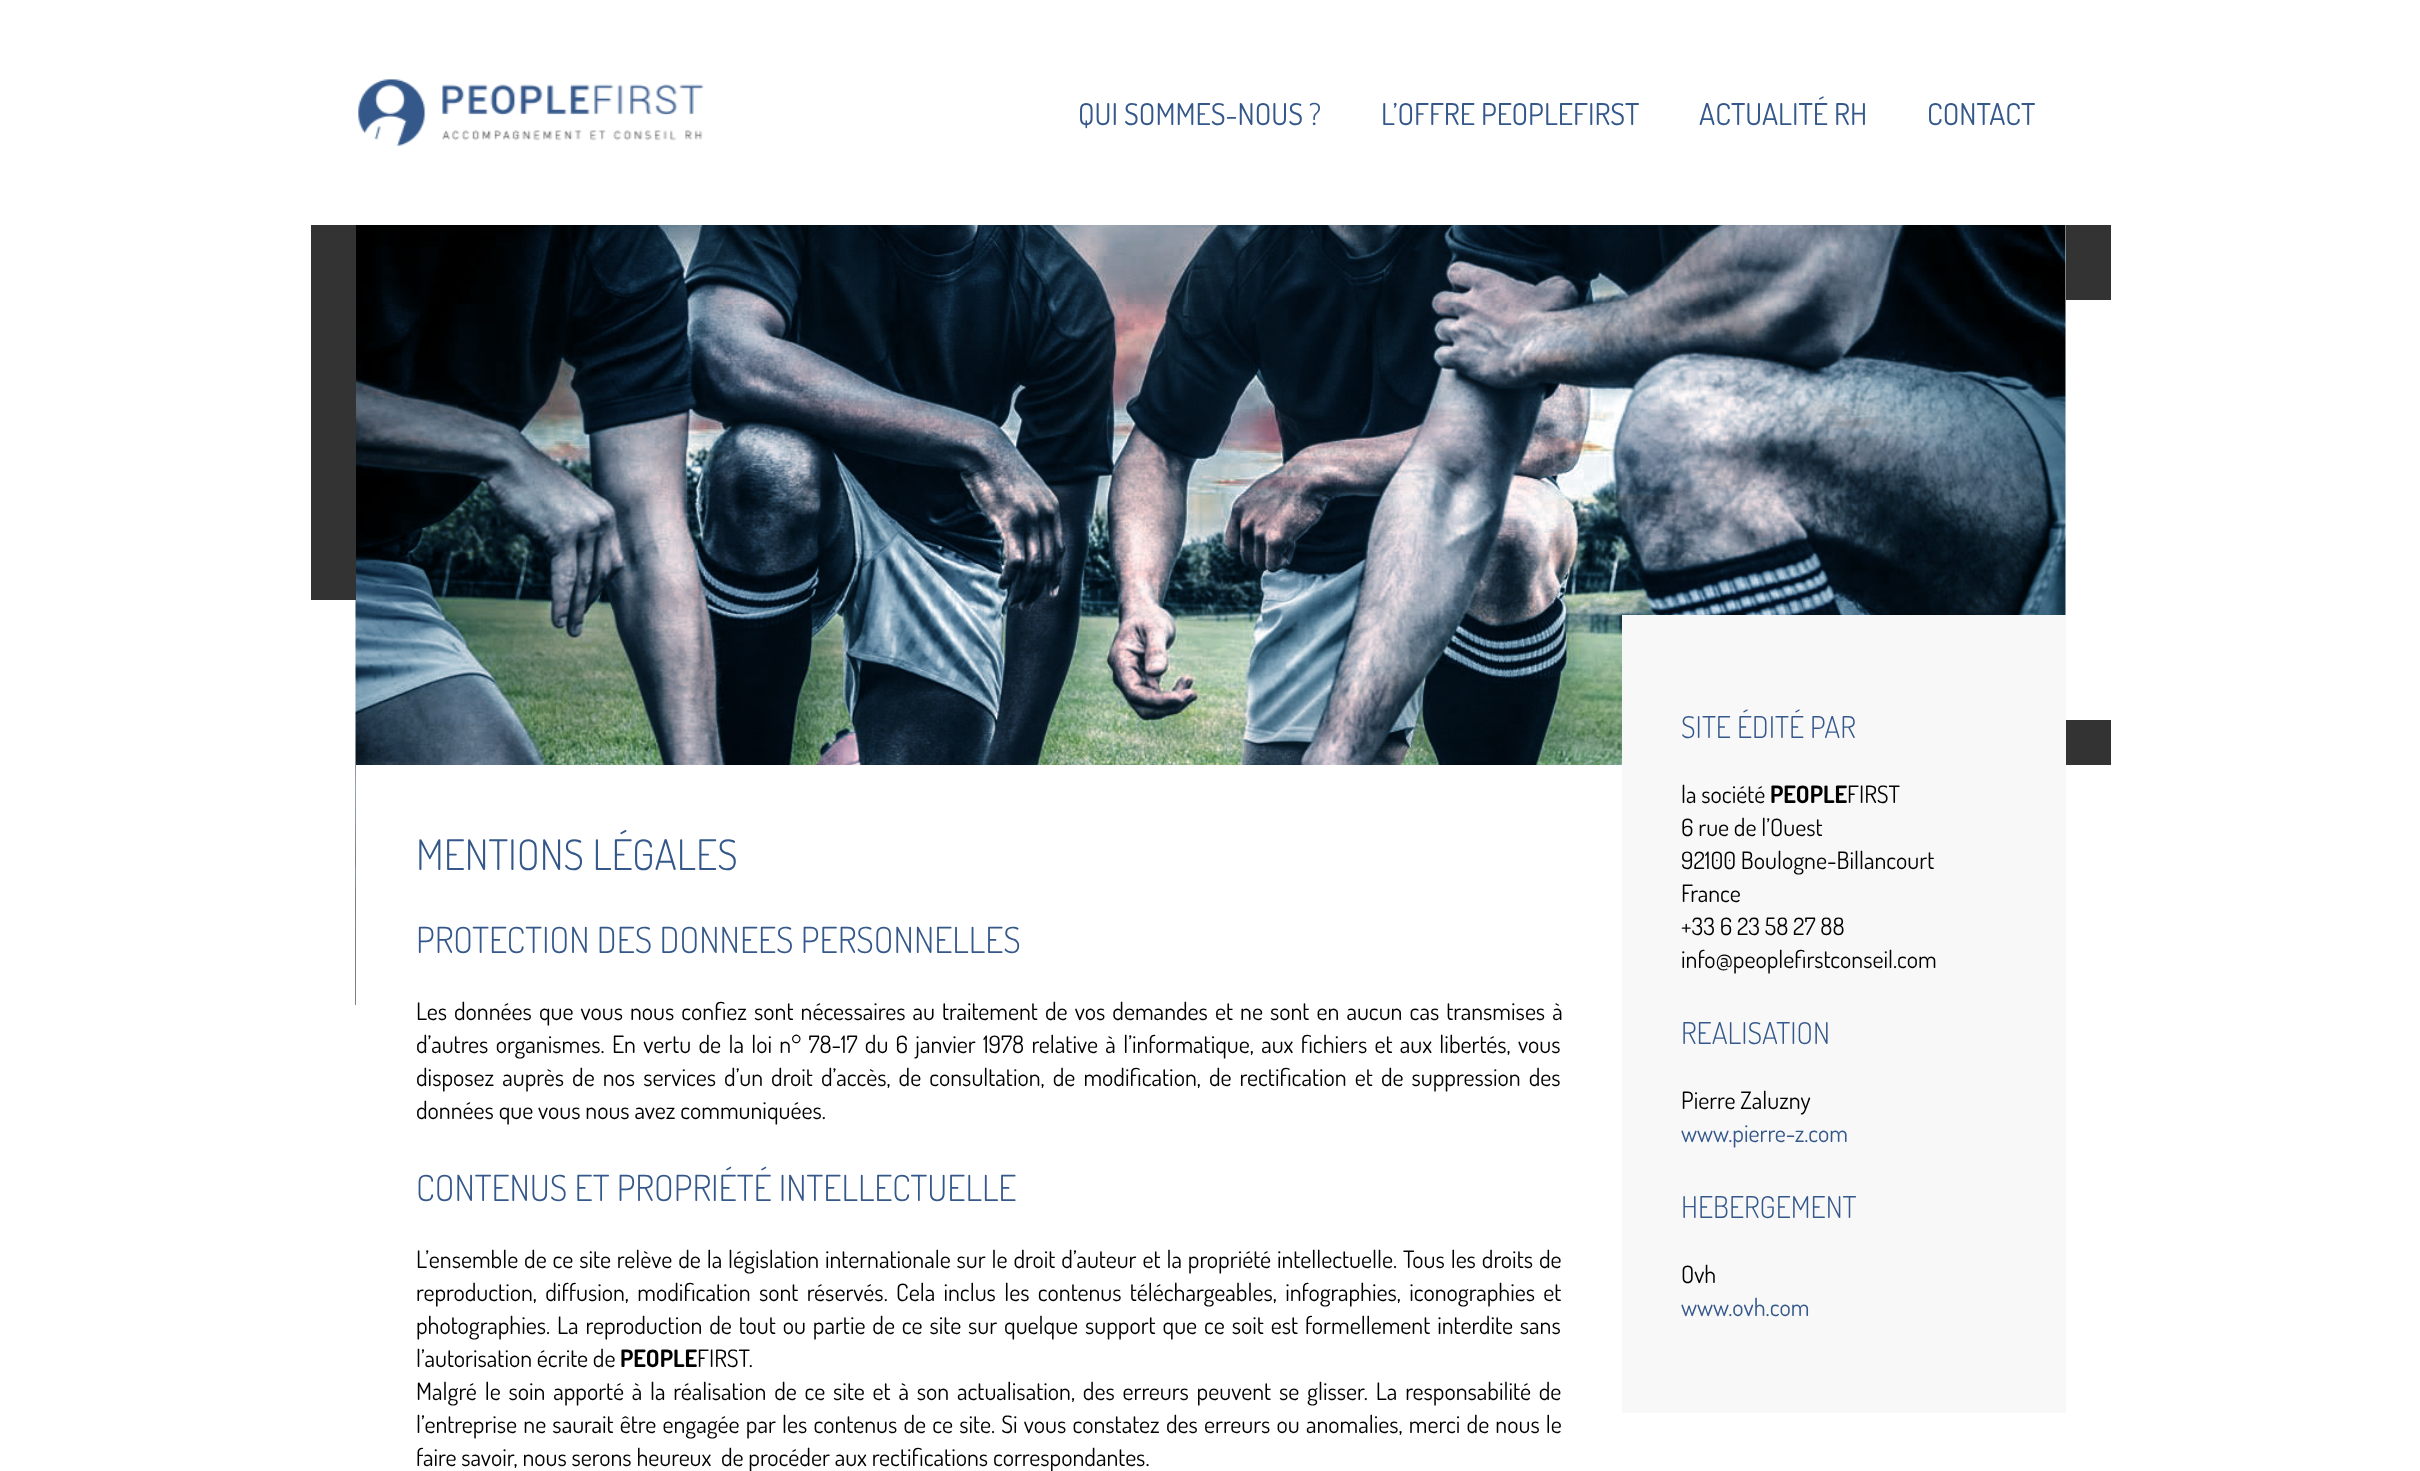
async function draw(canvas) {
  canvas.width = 2420
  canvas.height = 1471
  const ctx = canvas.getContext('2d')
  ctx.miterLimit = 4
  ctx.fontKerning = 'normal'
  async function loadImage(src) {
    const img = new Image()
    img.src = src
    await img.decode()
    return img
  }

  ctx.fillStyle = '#fff'
  ctx.fillRect(0, 0, 2420, 1471)
  ctx.drawImage(await loadImage('image0.png'), 358, 79, 346, 67)
  ctx.font = '30px Dosis'
  ctx.fillStyle = '#35588b'
  ctx.fillText('QUI SOMMES-NOUS ?', 1078, 125)
  ctx.fillText('L’OFFRE PEOPLEFIRST', 1381, 125)
  ctx.fillText('ACTUALITÉ RH', 1699, 125)
  ctx.fillText('CONTACT', 1927, 125)
  ctx.drawImage(await loadImage('image1.png'), 355, 225, 1711, 780)
  ctx.fillStyle = '#333'
  ctx.fillRect(311, 225, 45, 375)
  ctx.fillRect(2066, 225, 45, 75)
  ctx.fillRect(2066, 720, 45, 45)
  ctx.fillStyle = '#fff'
  ctx.fillRect(356, 765, 1266, 240)
  ctx.font = '300 42px Dosis'
  ctx.fillStyle = '#35588b'
  ctx.fillText('MENTIONS LÉGALES', 416, 870)
  ctx.font = '300 36px Dosis'
  ctx.fillText('PROTECTION DES DONNEES PERSONNELLES', 416, 953)
  ctx.wordSpacing = '2.25px'
  ctx.font = '24px Dosis'
  ctx.fillStyle = '#000'
  ctx.fillText('Les données que vous nous confiez sont nécessaires au traitement de vos demandes et ne sont en aucun cas transmises à', 416, 1020)
  ctx.wordSpacing = '2.5px'
  ctx.fillText('d’autres organismes. En vertu de la loi n° 78-17 du 6 janvier 1978 relative à l’informatique, aux fichiers et aux libertés, vous', 416, 1053)
  ctx.wordSpacing = '3.25px'
  ctx.fillText('disposez auprès de nos services d’un droit d’accès, de consultation, de modification, de rectification et de suppression des', 416, 1086)
  ctx.wordSpacing = '0px'
  ctx.fillText('données que vous nous avez communiquées.', 416, 1119)
  ctx.font = '300 36px Dosis'
  ctx.fillStyle = '#35588b'
  ctx.fillText('CONTENUS ET PROPRIÉTÉ INTELLECTUELLE', 416, 1201)
  ctx.wordSpacing = '1.1px'
  ctx.font = '24px Dosis'
  ctx.fillStyle = '#000'
  ctx.fillText('L’ensemble de ce site relève de la législation internationale sur le droit d’auteur et la propriété intellectuelle. Tous les droits de', 416, 1268)
  ctx.wordSpacing = '3.5px'
  ctx.fillText('reproduction, diffusion, modification sont réservés. Cela inclus les contenus téléchargeables, infographies, iconographies et', 416, 1301)
  ctx.wordSpacing = '2.1px'
  ctx.fillText('photographies. La reproduction de tout ou partie de ce site sur quelque support que ce soit est formellement interdite sans', 416, 1334)
  ctx.wordSpacing = '0px'
  ctx.fillText('l’autorisation écrite de', 416, 1367)
  ctx.font = 'bold 24px Dosis'
  ctx.fillText('PEOPLE', 620, 1367)
  ctx.font = '24px Dosis'
  ctx.fillText('FIRST.', 697, 1367)
  ctx.wordSpacing = '3px'
  ctx.fillText('Malgré le soin apporté à la réalisation de ce site et à son actualisation, des erreurs peuvent se glisser. La responsabilité de', 416, 1400)
  ctx.wordSpacing = '1.4px'
  ctx.fillText('l’entreprise ne saurait être engagée par les contenus de ce site. Si vous constatez des erreurs ou anomalies, merci de nous le', 416, 1433)
  ctx.wordSpacing = '0px'
  ctx.fillText('faire savoir, nous serons heureux  de procéder aux rectifications correspondantes.', 416, 1466)
  ctx.fillStyle = '#f8f8f8'
  ctx.fillRect(1622, 615, 444, 798)
  ctx.font = '300 30px Dosis'
  ctx.fillStyle = '#35588b'
  ctx.fillText('SITE ÉDITÉ PAR', 1681, 738)
  ctx.font = '24px Dosis'
  ctx.fillStyle = '#000'
  ctx.fillText('la société', 1681, 803)
  ctx.font = 'bold 24px Dosis'
  ctx.fillText('PEOPLE', 1770, 803)
  ctx.font = '24px Dosis'
  ctx.fillText('FIRST', 1847, 803)
  ctx.fillText('6 rue de l’Ouest', 1681, 836)
  ctx.fillText('92100 Boulogne-Billancourt', 1681, 869)
  ctx.fillText('France', 1681, 902)
  ctx.fillText('+33 6 23 58 27 88', 1681, 935)
  ctx.fillText('info@peoplefirstconseil.com', 1681, 968)
  ctx.font = '300 30px Dosis'
  ctx.fillStyle = '#35588b'
  ctx.fillText('REALISATION', 1681, 1044)
  ctx.font = '24px Dosis'
  ctx.fillStyle = '#000'
  ctx.fillText('Pierre Zaluzny', 1681, 1109)
  ctx.fillStyle = '#35588b'
  ctx.fillText('www.pierre-z.com', 1681, 1142)
  ctx.font = '300 30px Dosis'
  ctx.fillText('HEBERGEMENT', 1681, 1218)
  ctx.font = '24px Dosis'
  ctx.fillStyle = '#000'
  ctx.fillText('Ovh', 1681, 1283)
  ctx.fillStyle = '#35588b'
  ctx.fillText('www.ovh.com', 1681, 1316)
}

draw(document.querySelector('canvas'))
